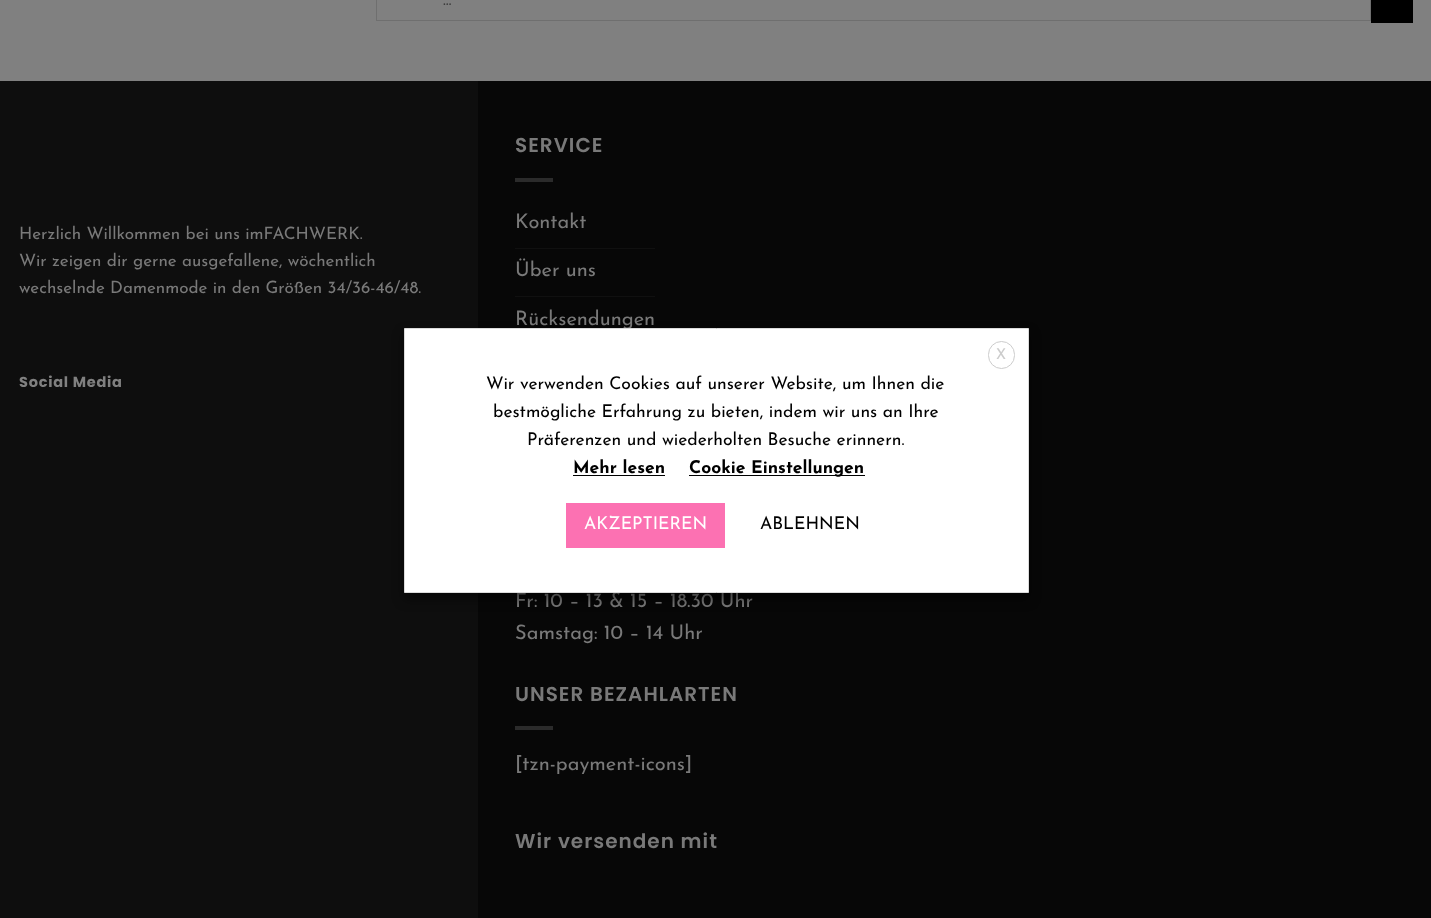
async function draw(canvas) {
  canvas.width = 1431
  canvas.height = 918
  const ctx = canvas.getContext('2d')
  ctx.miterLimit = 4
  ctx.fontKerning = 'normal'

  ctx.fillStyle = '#808080'
  ctx.fillRect(0, 0, 1431, 918)
  ctx.strokeStyle = '#6f6f6f'
  ctx.strokeRect(376.5, -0.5, 994, 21)
  ctx.font = '16px Josefin Sans'
  ctx.fillStyle = '#3b3b3b'
  ctx.fillText('…', 443, 5)
  ctx.fillStyle = '#000'
  ctx.fillRect(1371, 0, 42, 23)
  ctx.fillStyle = '#0e0e0e'
  ctx.fillRect(0, 81, 478, 837)
  ctx.font = '17px Josefin Sans'
  ctx.fillStyle = '#797979'
  ctx.fillText('Herzlich Willkommen bei uns imFACHWERK.', 19, 239)
  ctx.fillText('Wir zeigen dir gerne ausgefallene, wöchentlich', 19, 266)
  ctx.fillText('wechselnde Damenmode in den Größen 34/36-46/48.', 19, 293)
  ctx.letterSpacing = '0.75px'
  ctx.font = 'bold 14.5px Poppins'
  ctx.fillStyle = '#808080'
  ctx.fillText('Social Media', 19, 387)
  ctx.fillStyle = '#070707'
  ctx.fillRect(478, 81, 953, 837)
  ctx.letterSpacing = '1px'
  ctx.font = '600 20px Poppins'
  ctx.fillStyle = '#797979'
  ctx.fillText('SERVICE', 515, 152)
  ctx.fillStyle = '#2b2b2b'
  ctx.fillRect(515, 178, 38, 4)
  ctx.letterSpacing = '0px'
  ctx.font = '20px Josefin Sans'
  ctx.fillStyle = '#797979'
  ctx.fillText('Kontakt', 515, 228)
  ctx.fillStyle = '#101010'
  ctx.fillRect(515, 248, 140, 1)
  ctx.fillStyle = '#797979'
  ctx.fillText('Über uns', 515, 276)
  ctx.fillStyle = '#101010'
  ctx.fillRect(515, 296, 140, 1)
  ctx.fillStyle = '#797979'
  ctx.fillText('Rücksendungen', 515, 325)
  ctx.fillText('Fr: 10 – 13 & 15 – 18.30 Uhr', 515, 607)
  ctx.fillText('Samstag: 10 – 14 Uhr', 515, 639)
  ctx.letterSpacing = '1px'
  ctx.font = '600 20px Poppins'
  ctx.fillText('UNSER BEZAHLARTEN', 515, 701)
  ctx.fillStyle = '#2b2b2b'
  ctx.fillRect(515, 726, 38, 4)
  ctx.letterSpacing = '0px'
  ctx.font = '20px Josefin Sans'
  ctx.fillStyle = '#797979'
  ctx.fillText('[tzn-payment-icons]', 515, 770)
  ctx.letterSpacing = '1px'
  ctx.font = '600 20px Poppins'
  ctx.fillText('Wir versenden mit', 515, 848)
  ctx.fillStyle = '#00000080'
  ctx.filter = 'blur(6px)'
  ctx.beginPath()
  ctx.rect(404, 334, 625, 265)
  ctx.fill()
  ctx.filter = 'none'
  ctx.fillStyle = '#fff'
  ctx.beginPath()
  ctx.rect(404.5, 328.5, 624, 264)
  ctx.fill()
  ctx.strokeStyle = '#dbdbdb'
  ctx.stroke()
  ctx.beginPath()
  ctx.roundRect(988.5, 341.5, 26, 27, 13)
  ctx.strokeStyle = '#ccc'
  ctx.stroke()
  ctx.letterSpacing = '0px'
  ctx.font = '15px Josefin Sans'
  ctx.fillStyle = '#ccc'
  ctx.fillText('X', 996, 359)
  ctx.font = '17.5px Josefin Sans'
  ctx.fillStyle = '#000'
  ctx.fillText('Wir verwenden Cookies auf unserer Website, um Ihnen die', 486, 389)
  ctx.fillText('bestmögliche Erfahrung zu bieten, indem wir uns an Ihre', 493, 417)
  ctx.fillText('Präferenzen und wiederholten Besuche erinnern.', 527, 445)
  ctx.font = 'bold 17.5px Josefin Sans'
  ctx.fillText('Mehr lesen', 573, 473)
  ctx.fillRect(573, 475, 92, 1)
  ctx.fillRect(689, 475, 176, 1)
  ctx.fillText('Cookie Einstellungen', 689, 473)
  ctx.fillStyle = '#fc71b2'
  ctx.fillRect(566, 503, 159, 45)
  ctx.font = '17.5px Josefin Sans'
  ctx.fillStyle = '#fff'
  ctx.fillText('AKZEPTIEREN', 584, 529)
  ctx.fillStyle = '#000'
  ctx.fillText('ABLEHNEN', 760, 529)
}

draw(document.querySelector('canvas'))
